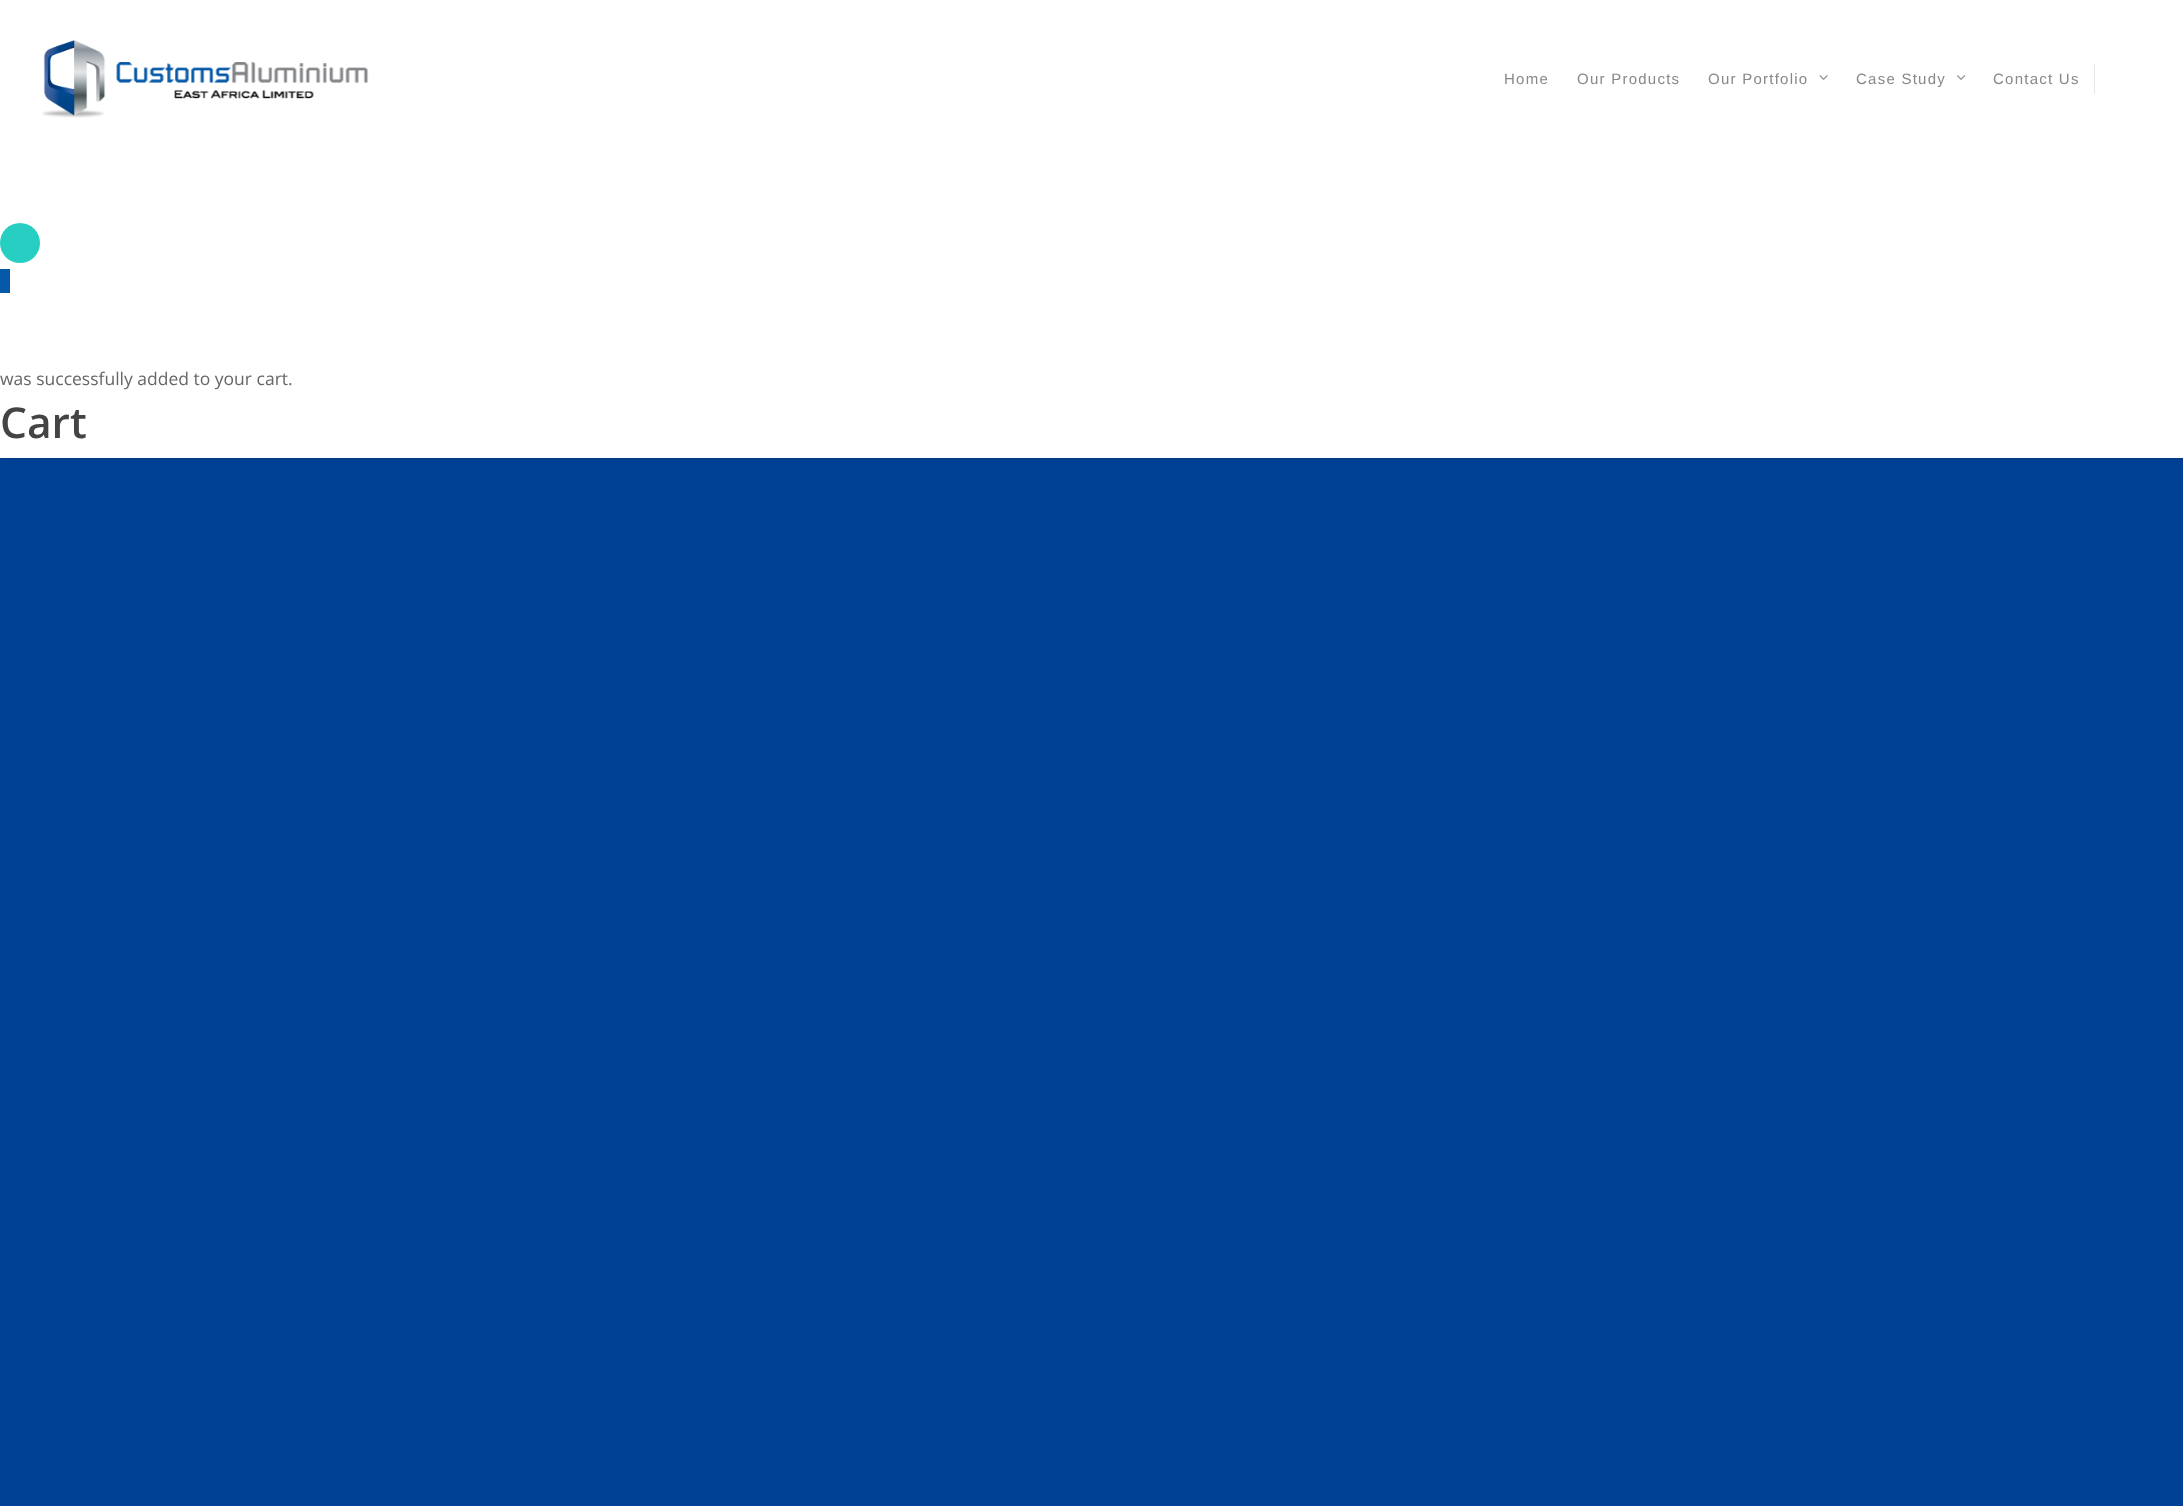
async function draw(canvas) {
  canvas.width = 2183
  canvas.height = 1506
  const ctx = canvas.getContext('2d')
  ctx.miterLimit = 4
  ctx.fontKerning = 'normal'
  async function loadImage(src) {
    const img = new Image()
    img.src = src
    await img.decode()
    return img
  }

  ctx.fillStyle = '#004196'
  ctx.fillRect(0, 0, 2183, 1506)
  ctx.fillStyle = '#00000038'
  ctx.filter = 'blur(2px)'
  ctx.beginPath()
  ctx.rect(0, 0, 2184, 458)
  ctx.fill()
  ctx.filter = 'none'
  ctx.fillStyle = '#fff'
  ctx.fillRect(0, 0, 2183, 458)
  ctx.drawImage(await loadImage('image0.png'), 42, 39, 327, 79)
  ctx.letterSpacing = '1.25px'
  ctx.font = '15px Liberation Sans'
  ctx.fillStyle = '#888'
  ctx.fillText('Home', 1504, 84)
  ctx.fillText('Our Products', 1577, 84)
  ctx.fillText('Our Portfolio', 1708, 84)
  ctx.drawImage(await loadImage('image1.png'), 1819, 75, 9, 5)
  ctx.fillText('Case Study', 1856, 84)
  ctx.drawImage(await loadImage('image2.png'), 1957, 75, 9, 5)
  ctx.fillText('Contact Us', 1993, 84)
  ctx.fillStyle = '#e7e7e7'
  ctx.fillRect(2094, 64, 1, 30)
  ctx.fillStyle = '#27cfc3'
  ctx.beginPath()
  ctx.arc(20, 243, 20, 0, 2 * Math.PI)
  ctx.fill()
  ctx.fillStyle = '#0659a7'
  ctx.fillRect(0, 269, 10, 24)
  ctx.letterSpacing = '0px'
  ctx.font = '17.5px Open Sans'
  ctx.fillStyle = '#676767'
  ctx.fillText('was successfully added to your cart.', 0, 385)
  ctx.font = '600 42.5px Open Sans'
  ctx.fillStyle = '#444'
  ctx.fillText('Cart', 0, 438)
}

draw(document.querySelector('canvas'))
